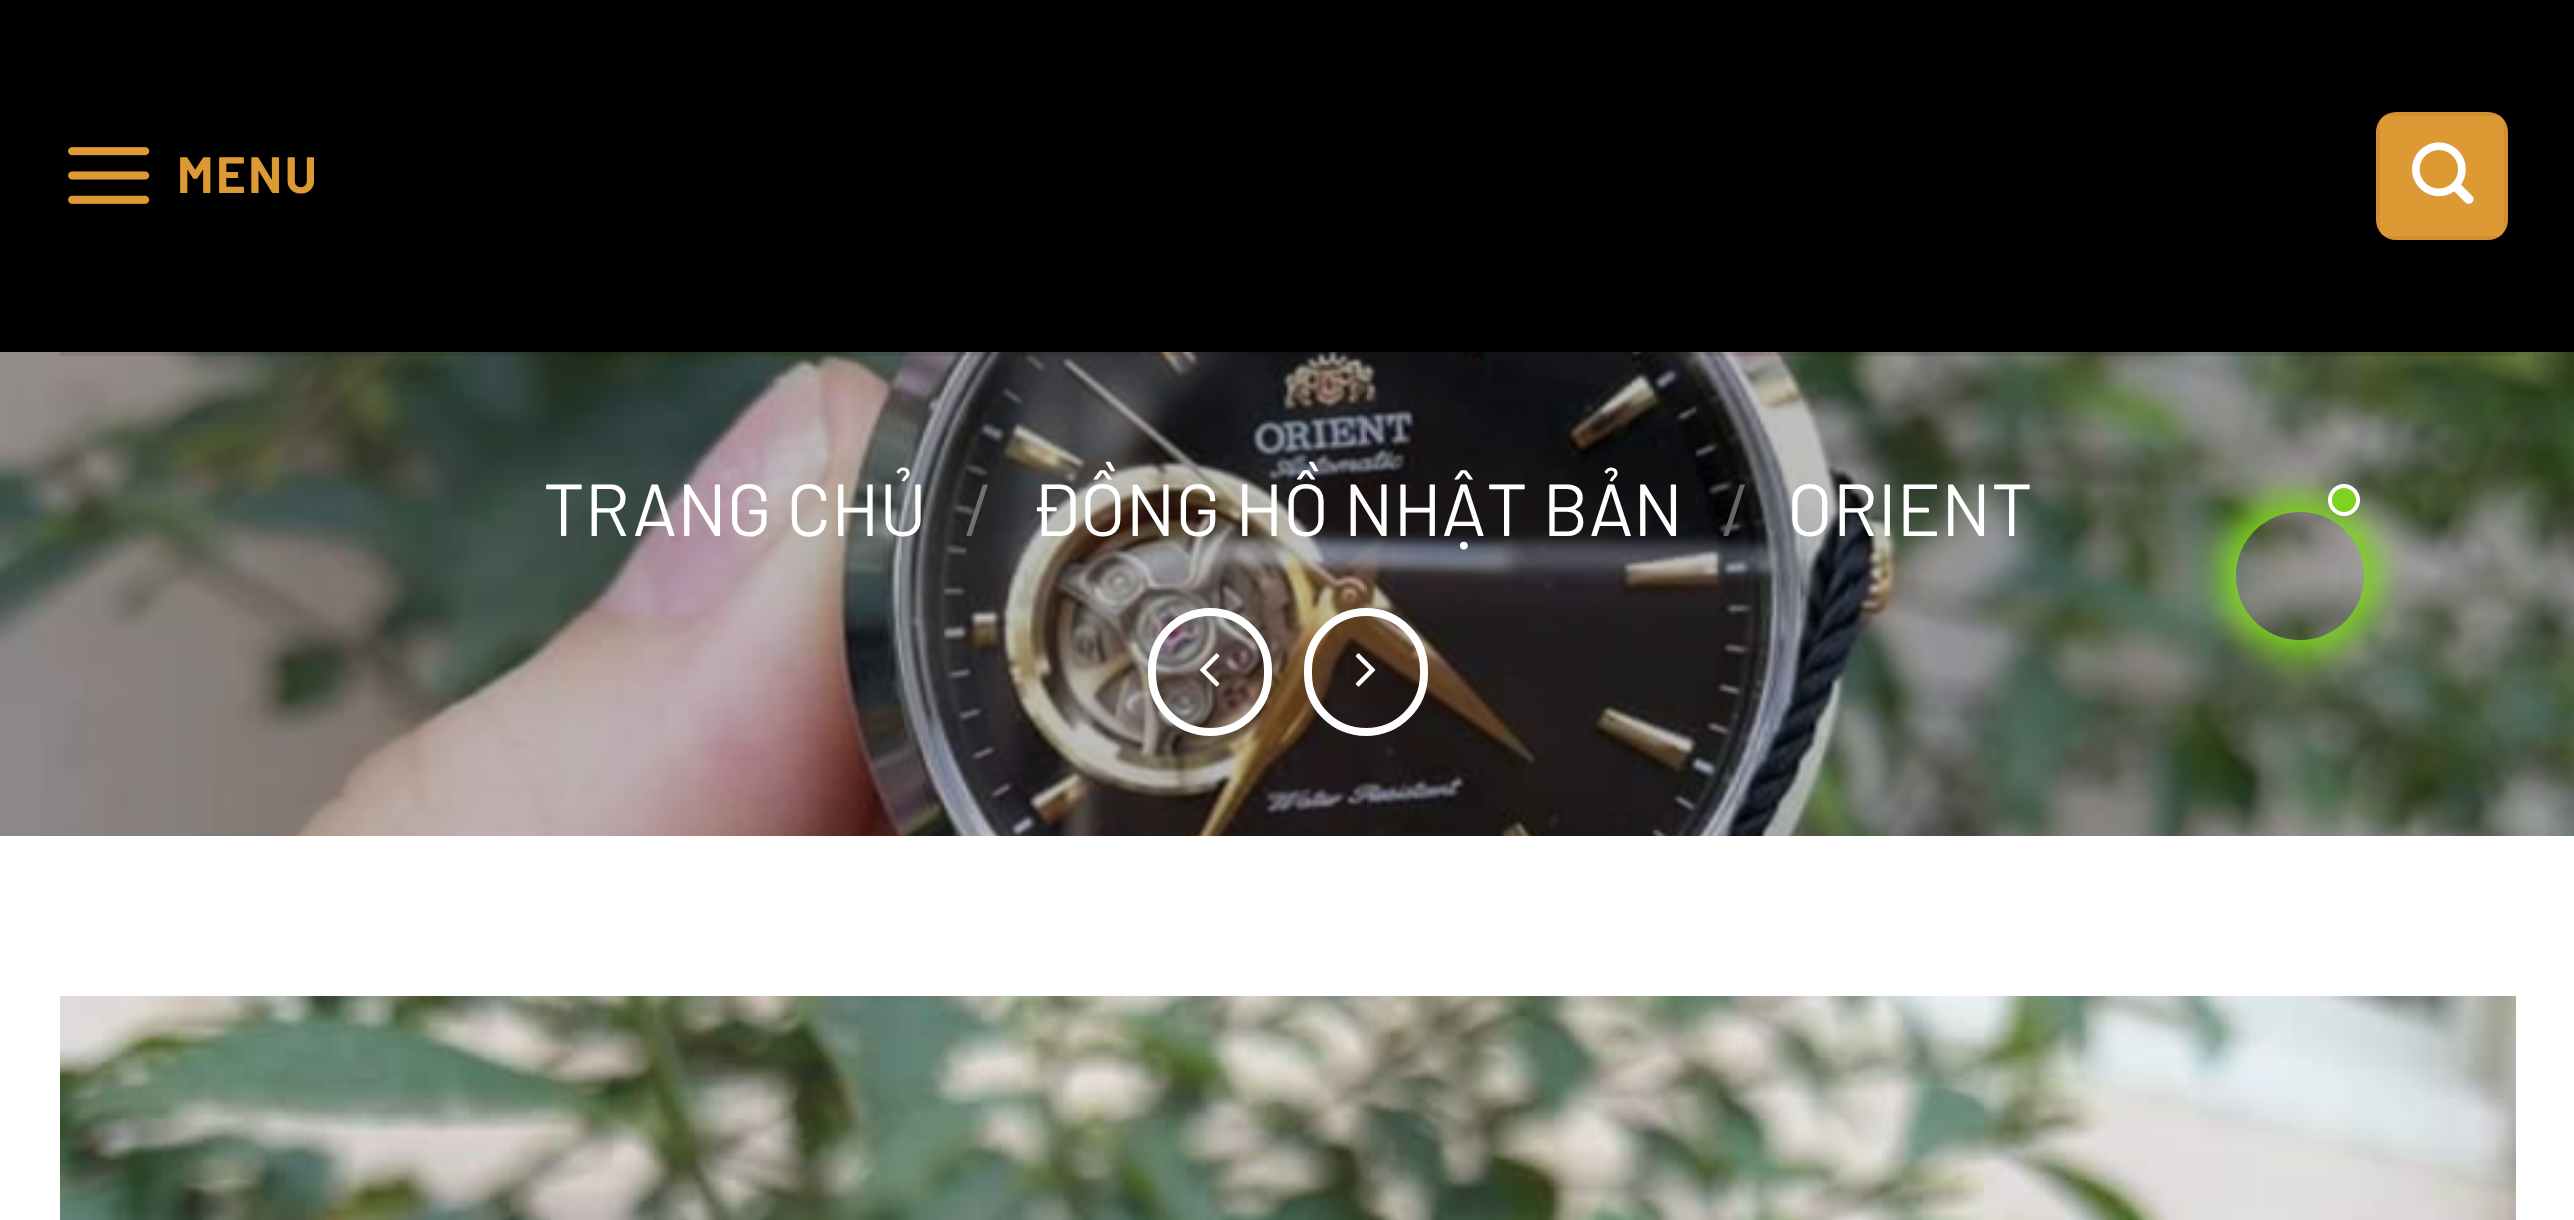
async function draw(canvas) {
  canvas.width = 2574
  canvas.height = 1220
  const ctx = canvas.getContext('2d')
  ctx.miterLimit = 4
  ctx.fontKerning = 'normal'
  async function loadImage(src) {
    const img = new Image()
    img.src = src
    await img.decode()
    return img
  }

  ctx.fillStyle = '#fff'
  ctx.fillRect(0, 0, 2574, 1220)
  ctx.fillStyle = '#000'
  ctx.fillRect(0, 0, 2574, 352)
  ctx.drawImage(await loadImage('image0.png'), 68, 147, 82, 57)
  ctx.letterSpacing = '2.5px'
  ctx.font = 'bold 51px Barlow'
  ctx.fillStyle = '#d93'
  ctx.fillText('MENU', 177, 193)
  ctx.beginPath()
  ctx.roundRect(2376, 112, 132, 128, 20)
  ctx.fill()
  ctx.strokeStyle = '#0000000d'
  ctx.lineWidth = 4
  ctx.strokeRect(2378, 114, 128, 124)
  ctx.drawImage(await loadImage('image1.png'), 2412, 142, 62, 62)
  ctx.drawImage(await loadImage('image2.png'), 0, 352, 2574, 484)
  ctx.fillStyle = '#140c001a'
  ctx.fillRect(60, 352, 2456, 4)
  ctx.letterSpacing = '0px'
  ctx.font = '73.5px Barlow'
  ctx.fillStyle = '#fff'
  ctx.fillText('TRANG CHỦ', 543, 536)
  ctx.fillStyle = '#707070'
  ctx.fillText('/', 964, 536)
  ctx.fillStyle = '#fff'
  ctx.fillText('ĐỒNG HỒ NHẬT BẢN', 1030, 536)
  ctx.fillStyle = '#656666'
  ctx.fillText('/', 1721, 536)
  ctx.fillStyle = '#fff'
  ctx.fillText('ORIENT', 1787, 536)
  ctx.beginPath()
  ctx.roundRect(1152, 612, 116, 120, 58)
  ctx.strokeStyle = '#fff'
  ctx.lineWidth = 8
  ctx.stroke()
  ctx.drawImage(await loadImage('image3.png'), 1200, 653, 20, 34)
  ctx.beginPath()
  ctx.roundRect(1308, 612, 116, 120, 58)
  ctx.stroke()
  ctx.drawImage(await loadImage('image4.png'), 1355, 653, 21, 34)
  ctx.drawImage(await loadImage('image5.png'), 60, 996, 2456, 224)
  ctx.save()
  ctx.beginPath()
  ctx.moveTo(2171, 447)
  ctx.lineTo(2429, 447)
  ctx.lineTo(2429, 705)
  ctx.lineTo(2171, 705)
  ctx.closePath()
  ctx.moveTo(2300, 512)
  ctx.bezierCurveTo(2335.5, 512, 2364, 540.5, 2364, 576)
  ctx.bezierCurveTo(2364, 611.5, 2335.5, 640, 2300, 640)
  ctx.bezierCurveTo(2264.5, 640, 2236, 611.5, 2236, 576)
  ctx.bezierCurveTo(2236, 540.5, 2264.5, 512, 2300, 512)
  ctx.closePath()
  ctx.clip('evenodd')
  ctx.fillStyle = '#7ed321'
  ctx.filter = 'blur(16px)'
  ctx.beginPath()
  ctx.roundRect(2220, 496, 160, 160, 80)
  ctx.fill()
  ctx.filter = 'none'
  ctx.restore()
  ctx.fillStyle = '#7ed321'
  ctx.beginPath()
  ctx.arc(2344, 500, 14, 0, 2 * Math.PI)
  ctx.fill()
  ctx.lineWidth = 4
  ctx.stroke()
}

draw(document.querySelector('canvas'))
